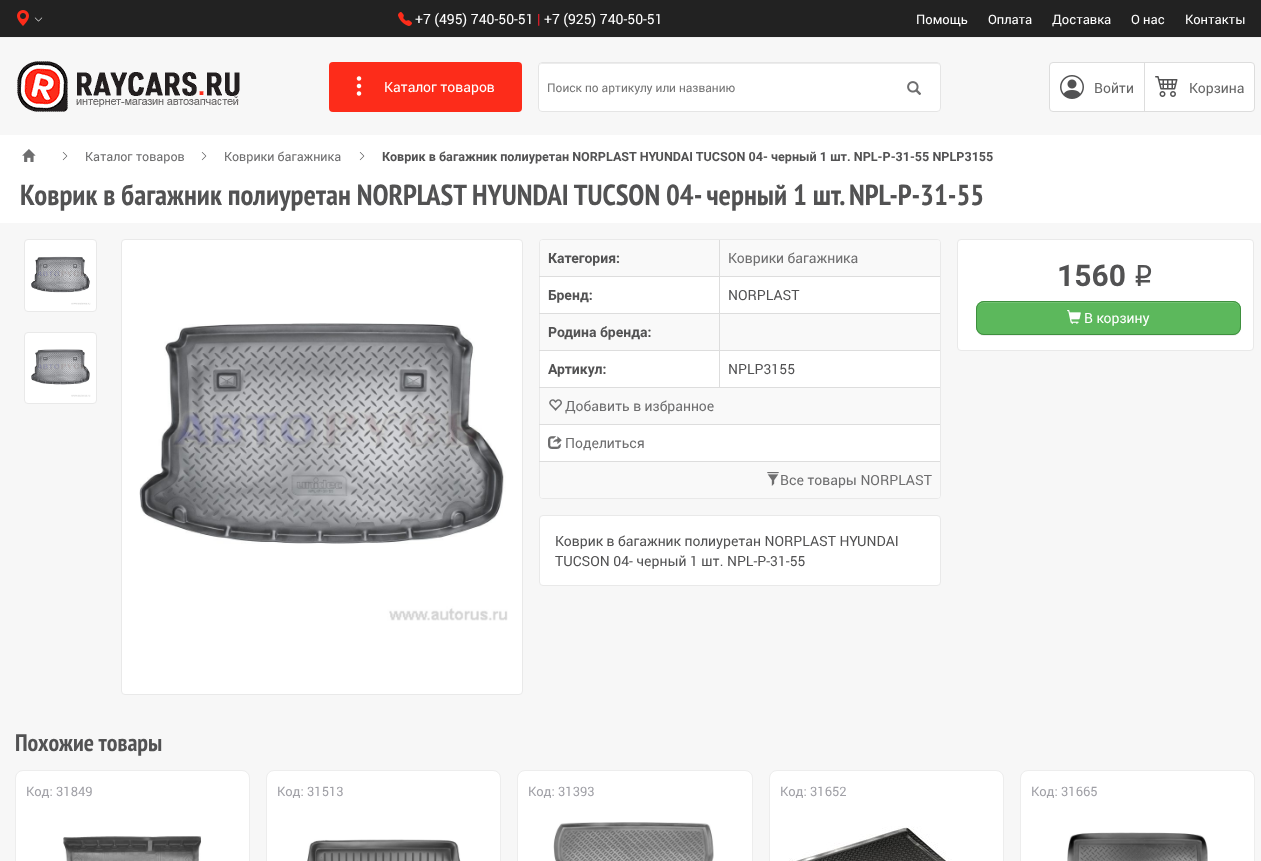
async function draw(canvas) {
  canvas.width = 1261
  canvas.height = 861
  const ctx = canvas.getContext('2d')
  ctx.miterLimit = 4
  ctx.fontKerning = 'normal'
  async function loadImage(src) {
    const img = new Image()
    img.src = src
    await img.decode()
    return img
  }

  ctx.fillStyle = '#f7f7f7'
  ctx.fillRect(0, 0, 1261, 861)
  ctx.fillStyle = '#222'
  ctx.fillRect(0, 0, 1261, 37)
  ctx.fillStyle = '#f0f0f0'
  ctx.fillRect(0, 37, 1261, 1)
  ctx.drawImage(await loadImage('image0.png'), 17, 10, 12, 16)
  ctx.drawImage(await loadImage('image1.png'), 34, 17, 9, 5)
  ctx.drawImage(await loadImage('image2.png'), 398, 12, 14, 14)
  ctx.font = '14px Roboto'
  ctx.fillStyle = '#fff'
  ctx.fillText('+7 (495) 740-50-51', 415, 24)
  ctx.fillStyle = '#fd1c2a'
  ctx.fillText('|', 537, 24)
  ctx.fillStyle = '#fff'
  ctx.fillText('+7 (925) 740-50-51', 544, 24)
  ctx.font = '13px Roboto'
  ctx.fillText('Помощь', 916, 24)
  ctx.fillText('Оплата', 988, 24)
  ctx.fillText('Доставка', 1052, 24)
  ctx.fillText('О нас', 1131, 24)
  ctx.fillText('Контакты', 1185, 24)
  ctx.drawImage(await loadImage('image3.png'), 17, 61, 223, 51)
  ctx.fillStyle = '#fd2c1a'
  ctx.beginPath()
  ctx.roundRect(329, 62, 193, 50, 4)
  ctx.fill()
  ctx.drawImage(await loadImage('image4.png'), 356, 76, 6, 20)
  ctx.font = '14px Roboto'
  ctx.fillStyle = '#fff'
  ctx.fillText('Каталог товаров', 384, 92)
  ctx.beginPath()
  ctx.roundRect(538, 62, 403, 50, 4)
  ctx.fill()
  ctx.fillStyle = '#ececec'
  ctx.beginPath()
  ctx.moveTo(542, 64)
  ctx.lineTo(937, 64)
  ctx.bezierCurveTo(939, 64, 940, 65, 940, 67)
  ctx.bezierCurveTo(940, 65, 939, 63, 937, 63)
  ctx.lineTo(542, 63)
  ctx.lineTo(540, 64)
  ctx.lineTo(539, 67)
  ctx.bezierCurveTo(539, 65, 540, 64, 542, 64)
  ctx.closePath()
  ctx.fill()
  ctx.beginPath()
  ctx.roundRect(538.5, 62.5, 402, 49, 3.5)
  ctx.strokeStyle = '#e5e5e5'
  ctx.stroke()
  ctx.font = '12px Roboto'
  ctx.fillStyle = '#757575'
  ctx.fillText('Поиск по артикулу или названию', 547, 92)
  ctx.drawImage(await loadImage('image5.png'), 907, 81, 14, 14)
  ctx.fillStyle = '#fff'
  ctx.beginPath()
  ctx.roundRect(1049.5, 62.5, 205, 49, 3.5)
  ctx.fill()
  ctx.strokeStyle = '#ddd'
  ctx.stroke()
  ctx.drawImage(await loadImage('image6.png'), 1060, 75, 24, 24)
  ctx.font = '14px Roboto'
  ctx.fillStyle = '#666'
  ctx.fillText('Войти', 1094, 93)
  ctx.fillStyle = '#ddd'
  ctx.fillRect(1144, 63, 1, 49)
  ctx.drawImage(await loadImage('image7.png'), 1155, 76, 23, 21)
  ctx.fillStyle = '#666'
  ctx.fillText('Корзина', 1189, 93)
  ctx.fillStyle = '#fff'
  ctx.fillRect(0, 135, 1261, 88)
  ctx.drawImage(await loadImage('image8.png'), 22, 149, 14, 13)
  ctx.drawImage(await loadImage('image9.png'), 62, 152, 6, 9)
  ctx.font = '12.6px Roboto'
  ctx.fillStyle = '#6e6e6f'
  ctx.fillText('Каталог товаров', 85, 161)
  ctx.drawImage(await loadImage('image9.png'), 201, 152, 6, 9)
  ctx.fillText('Коврики багажника', 224, 161)
  ctx.drawImage(await loadImage('image9.png'), 359, 152, 6, 9)
  ctx.font = 'bold 12.6px Roboto'
  ctx.fillStyle = '#525253'
  ctx.fillText('Коврик в багажник полиуретан NORPLAST HYUNDAI TUCSON 04- черный 1 шт. NPL-P-31-55 NPLP3155', 382, 161)
  ctx.font = 'bold 29px PT Sans Narrow'
  ctx.fillText('Коврик в багажник полиуретан NORPLAST HYUNDAI TUCSON 04- черный 1 шт. NPL-P-31-55', 20, 205)
  ctx.fillStyle = '#fff'
  ctx.beginPath()
  ctx.roundRect(24.5, 239.5, 72, 72, 3.5)
  ctx.fill()
  ctx.strokeStyle = '#e9e9e9'
  ctx.stroke()
  ctx.drawImage(await loadImage('image10.png'), 31, 256, 60, 49)
  ctx.beginPath()
  ctx.roundRect(24.5, 332.5, 72, 71, 3.5)
  ctx.fill()
  ctx.stroke()
  ctx.drawImage(await loadImage('image11.png'), 31, 349, 60, 48)
  ctx.beginPath()
  ctx.roundRect(121.5, 239.5, 401, 455, 3.5)
  ctx.fill()
  ctx.stroke()
  ctx.drawImage(await loadImage('image12.png'), 139, 323, 369, 298)
  ctx.beginPath()
  ctx.roundRect(539.5, 239.5, 401, 259, 3.5)
  ctx.fill()
  ctx.stroke()
  ctx.fillStyle = '#f9f9f9'
  ctx.beginPath()
  ctx.roundRect(540, 240, 400, 37, [3, 3, 0, 0])
  ctx.fill()
  ctx.font = 'bold 14px Roboto'
  ctx.fillStyle = '#525253'
  ctx.fillText('Категория:', 548, 263)
  ctx.fillStyle = '#ddd'
  ctx.fillRect(719, 276, 221, 1)
  ctx.fillRect(719, 313, 221, 1)
  ctx.fillStyle = '#f9f9f9'
  ctx.fillRect(540, 314, 400, 36)
  ctx.fillStyle = '#ddd'
  ctx.fillRect(719, 350, 221, 1)
  ctx.fillRect(539, 387, 401, 1)
  ctx.fillRect(719, 350, 1, 38)
  ctx.fillRect(539, 350, 181, 1)
  ctx.fillRect(719, 313, 1, 38)
  ctx.fillRect(539, 313, 181, 1)
  ctx.fillRect(719, 276, 1, 38)
  ctx.fillRect(539, 276, 181, 1)
  ctx.fillRect(719, 240, 1, 37)
  ctx.font = '14px Roboto'
  ctx.fillStyle = '#6e6e6f'
  ctx.fillText('Коврики багажника', 728, 263)
  ctx.font = 'bold 14px Roboto'
  ctx.fillStyle = '#525253'
  ctx.fillText('Бренд:', 548, 300)
  ctx.font = '14px Roboto'
  ctx.fillText('NORPLAST', 728, 300)
  ctx.font = 'bold 14px Roboto'
  ctx.fillText('Родина бренда:', 548, 337)
  ctx.fillText('Артикул:', 548, 374)
  ctx.font = '14px Roboto'
  ctx.fillText('NPLP3155', 728, 374)
  ctx.fillStyle = '#f9f9f9'
  ctx.fillRect(540, 388, 400, 36)
  ctx.drawImage(await loadImage('image13.png'), 549, 399, 13, 12)
  ctx.fillStyle = '#6e6e6f'
  ctx.fillText('Добавить в избранное', 565, 411)
  ctx.fillStyle = '#ddd'
  ctx.fillRect(539, 424, 401, 1)
  ctx.drawImage(await loadImage('image14.png'), 548, 436, 14, 13)
  ctx.fillStyle = '#6e6e6f'
  ctx.fillText('Поделиться', 565, 448)
  ctx.fillStyle = '#f9f9f9'
  ctx.beginPath()
  ctx.roundRect(540, 462, 400, 36, [0, 0, 3, 3])
  ctx.fill()
  ctx.fillStyle = '#ddd'
  ctx.fillRect(539, 461, 401, 1)
  ctx.drawImage(await loadImage('image15.png'), 767, 472, 12, 14)
  ctx.fillStyle = '#6e6e6f'
  ctx.fillText('Все товары NORPLAST', 780, 485)
  ctx.fillStyle = '#fff'
  ctx.beginPath()
  ctx.roundRect(539.5, 515.5, 401, 70, 3.5)
  ctx.fill()
  ctx.stroke()
  ctx.fillStyle = '#525253'
  ctx.fillText('Коврик в багажник полиуретан NORPLAST HYUNDAI', 555, 546)
  ctx.fillText('TUCSON 04- черный 1 шт. NPL-P-31-55', 555, 566)
  ctx.fillStyle = '#fff'
  ctx.beginPath()
  ctx.roundRect(957.5, 239.5, 296, 111, 3.5)
  ctx.fill()
  ctx.stroke()
  ctx.font = 'bold 30px Roboto'
  ctx.fillStyle = '#525253'
  ctx.fillText('1560', 1057, 286)
  ctx.font = '30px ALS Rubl'
  ctx.fillText('i', 1133, 286)
  ctx.fillStyle = '#00000012'
  ctx.filter = 'blur(0.5px)'
  ctx.beginPath()
  ctx.roundRect(976, 302, 265, 34, 8)
  ctx.fill()
  ctx.filter = 'none'
  ctx.fillStyle = '#5cb85c'
  ctx.beginPath()
  ctx.roundRect(976, 301, 265, 34, 8)
  ctx.fill()
  ctx.fillStyle = '#74c374'
  ctx.beginPath()
  ctx.moveTo(984, 303)
  ctx.lineTo(1234, 303)
  ctx.bezierCurveTo(1239, 304, 1240, 307, 1240, 311)
  ctx.lineTo(1240, 309)
  ctx.bezierCurveTo(1240, 305, 1237, 302, 1233, 302)
  ctx.lineTo(984, 302)
  ctx.bezierCurveTo(980, 302, 977, 305, 977, 309)
  ctx.lineTo(977, 310)
  ctx.bezierCurveTo(977, 306, 979, 303, 984, 303)
  ctx.closePath()
  ctx.moveTo(1240, 327)
  ctx.lineTo(1239, 330)
  ctx.closePath()
  ctx.fill('evenodd')
  ctx.beginPath()
  ctx.roundRect(976.5, 301.5, 264, 33, 7.5)
  ctx.strokeStyle = '#3e8f3e'
  ctx.stroke()
  ctx.drawImage(await loadImage('image16.png'), 1067, 310, 14, 14)
  ctx.font = '14px Roboto'
  ctx.fillStyle = '#fff'
  ctx.fillText('В корзину', 1084, 323)
  ctx.font = 'bold 24px PT Sans Narrow'
  ctx.fillStyle = '#525253'
  ctx.fillText('Похожие товары', 15, 751)
  ctx.fillStyle = '#fff'
  ctx.beginPath()
  ctx.roundRect(15.5, 770.5, 234, 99, 7.5)
  ctx.fill()
  ctx.strokeStyle = '#ededed'
  ctx.stroke()
  ctx.font = '13px Roboto'
  ctx.fillStyle = '#a1a1a7'
  ctx.fillText('Код: 31849', 26, 796)
  ctx.drawImage(await loadImage('image17.png'), 63, 836, 139, 25)
  ctx.fillStyle = '#fff'
  ctx.beginPath()
  ctx.roundRect(266.5, 770.5, 234, 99, 7.5)
  ctx.fill()
  ctx.stroke()
  ctx.fillStyle = '#a1a1a7'
  ctx.fillText('Код: 31513', 277, 796)
  ctx.drawImage(await loadImage('image18.png'), 307, 839, 154, 22)
  ctx.fillStyle = '#fff'
  ctx.beginPath()
  ctx.roundRect(517.5, 770.5, 235, 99, 7.5)
  ctx.fill()
  ctx.stroke()
  ctx.fillStyle = '#a1a1a7'
  ctx.fillText('Код: 31393', 528, 796)
  ctx.drawImage(await loadImage('image19.png'), 553, 822, 161, 39)
  ctx.fillStyle = '#fff'
  ctx.beginPath()
  ctx.roundRect(769.5, 770.5, 234, 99, 7.5)
  ctx.fill()
  ctx.stroke()
  ctx.fillStyle = '#a1a1a7'
  ctx.fillText('Код: 31652', 780, 796)
  ctx.drawImage(await loadImage('image20.png'), 789, 826, 163, 35)
  ctx.fillStyle = '#fff'
  ctx.beginPath()
  ctx.roundRect(1020.5, 770.5, 234, 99, 7.5)
  ctx.fill()
  ctx.stroke()
  ctx.fillStyle = '#a1a1a7'
  ctx.fillText('Код: 31665', 1031, 796)
  ctx.drawImage(await loadImage('image21.png'), 1067, 832, 141, 29)
}

draw(document.querySelector('canvas'))
